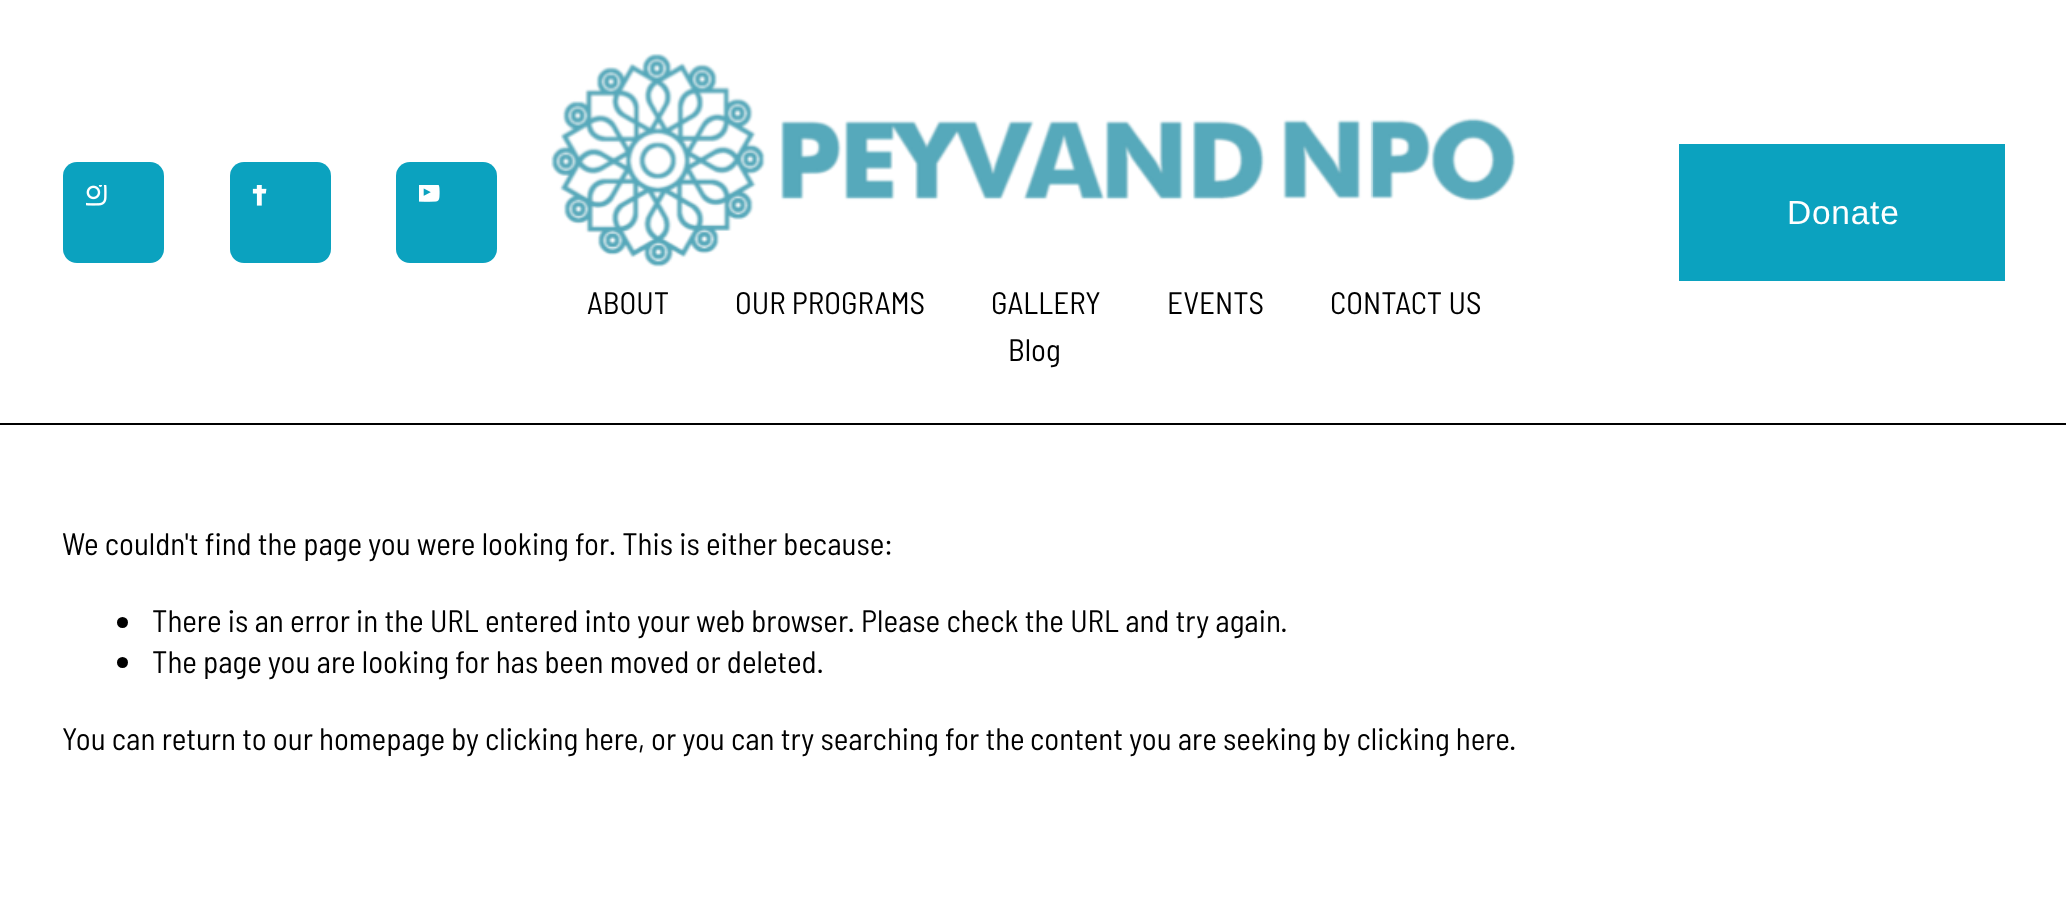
async function draw(canvas) {
  canvas.width = 2066
  canvas.height = 902
  const ctx = canvas.getContext('2d')
  ctx.miterLimit = 4
  ctx.fontKerning = 'normal'
  async function loadImage(src) {
    const img = new Image()
    img.src = src
    await img.decode()
    return img
  }

  ctx.fillStyle = '#fff'
  ctx.fillRect(0, 0, 2066, 902)
  ctx.fillStyle = '#0ba2bf'
  ctx.beginPath()
  ctx.roundRect(63, 162, 101, 101, 14)
  ctx.fill()
  ctx.drawImage(await loadImage('image0.png'), 86, 185, 21, 21)
  ctx.beginPath()
  ctx.roundRect(230, 162, 101, 101, 14)
  ctx.fill()
  ctx.drawImage(await loadImage('image1.png'), 252, 185, 15, 21)
  ctx.beginPath()
  ctx.roundRect(396, 162, 101, 101, 14)
  ctx.fill()
  ctx.drawImage(await loadImage('image2.png'), 419, 185, 21, 17)
  ctx.fillRect(1679, 144, 326, 137)
  ctx.letterSpacing = '0.75px'
  ctx.font = '33.5px Liberation Sans'
  ctx.fillStyle = '#fff'
  ctx.fillText('Donate', 1787, 224)
  ctx.drawImage(await loadImage('image3.png'), 551, 53, 965, 214)
  ctx.letterSpacing = '0px'
  ctx.font = '31.05px Barlow Semi Condensed'
  ctx.fillStyle = '#000'
  ctx.fillText('ABOUT', 587, 314)
  ctx.fillText('OUR PROGRAMS', 735, 314)
  ctx.fillText('GALLERY', 991, 314)
  ctx.fillText('EVENTS', 1167, 314)
  ctx.fillText('CONTACT US', 1330, 314)
  ctx.fillText('Blog', 1008, 361)
  ctx.fillRect(0, 423, 2066, 2)
  ctx.fillText('We couldn\'t find the page you were looking for. This is either because:', 62, 555)
  ctx.beginPath()
  ctx.arc(122.5, 622.5, 5.5, 0, 2 * Math.PI)
  ctx.fill()
  ctx.fillText('There is an error in the URL entered into your web browser. Please check the URL and try again.', 152, 632)
  ctx.beginPath()
  ctx.arc(122.5, 662.5, 5.5, 0, 2 * Math.PI)
  ctx.fill()
  ctx.fillText('The page you are looking for has been moved or deleted.', 152, 673)
  ctx.fillText('You can return to our homepage by', 62, 750)
  ctx.fillText('clicking here', 485, 750)
  ctx.fillText(', or you can try searching for the', 638, 750)
  ctx.fillText('content you are seeking by clicking here', 1030, 750)
  ctx.fillText('.', 1509, 750)
}

draw(document.querySelector('canvas'))
